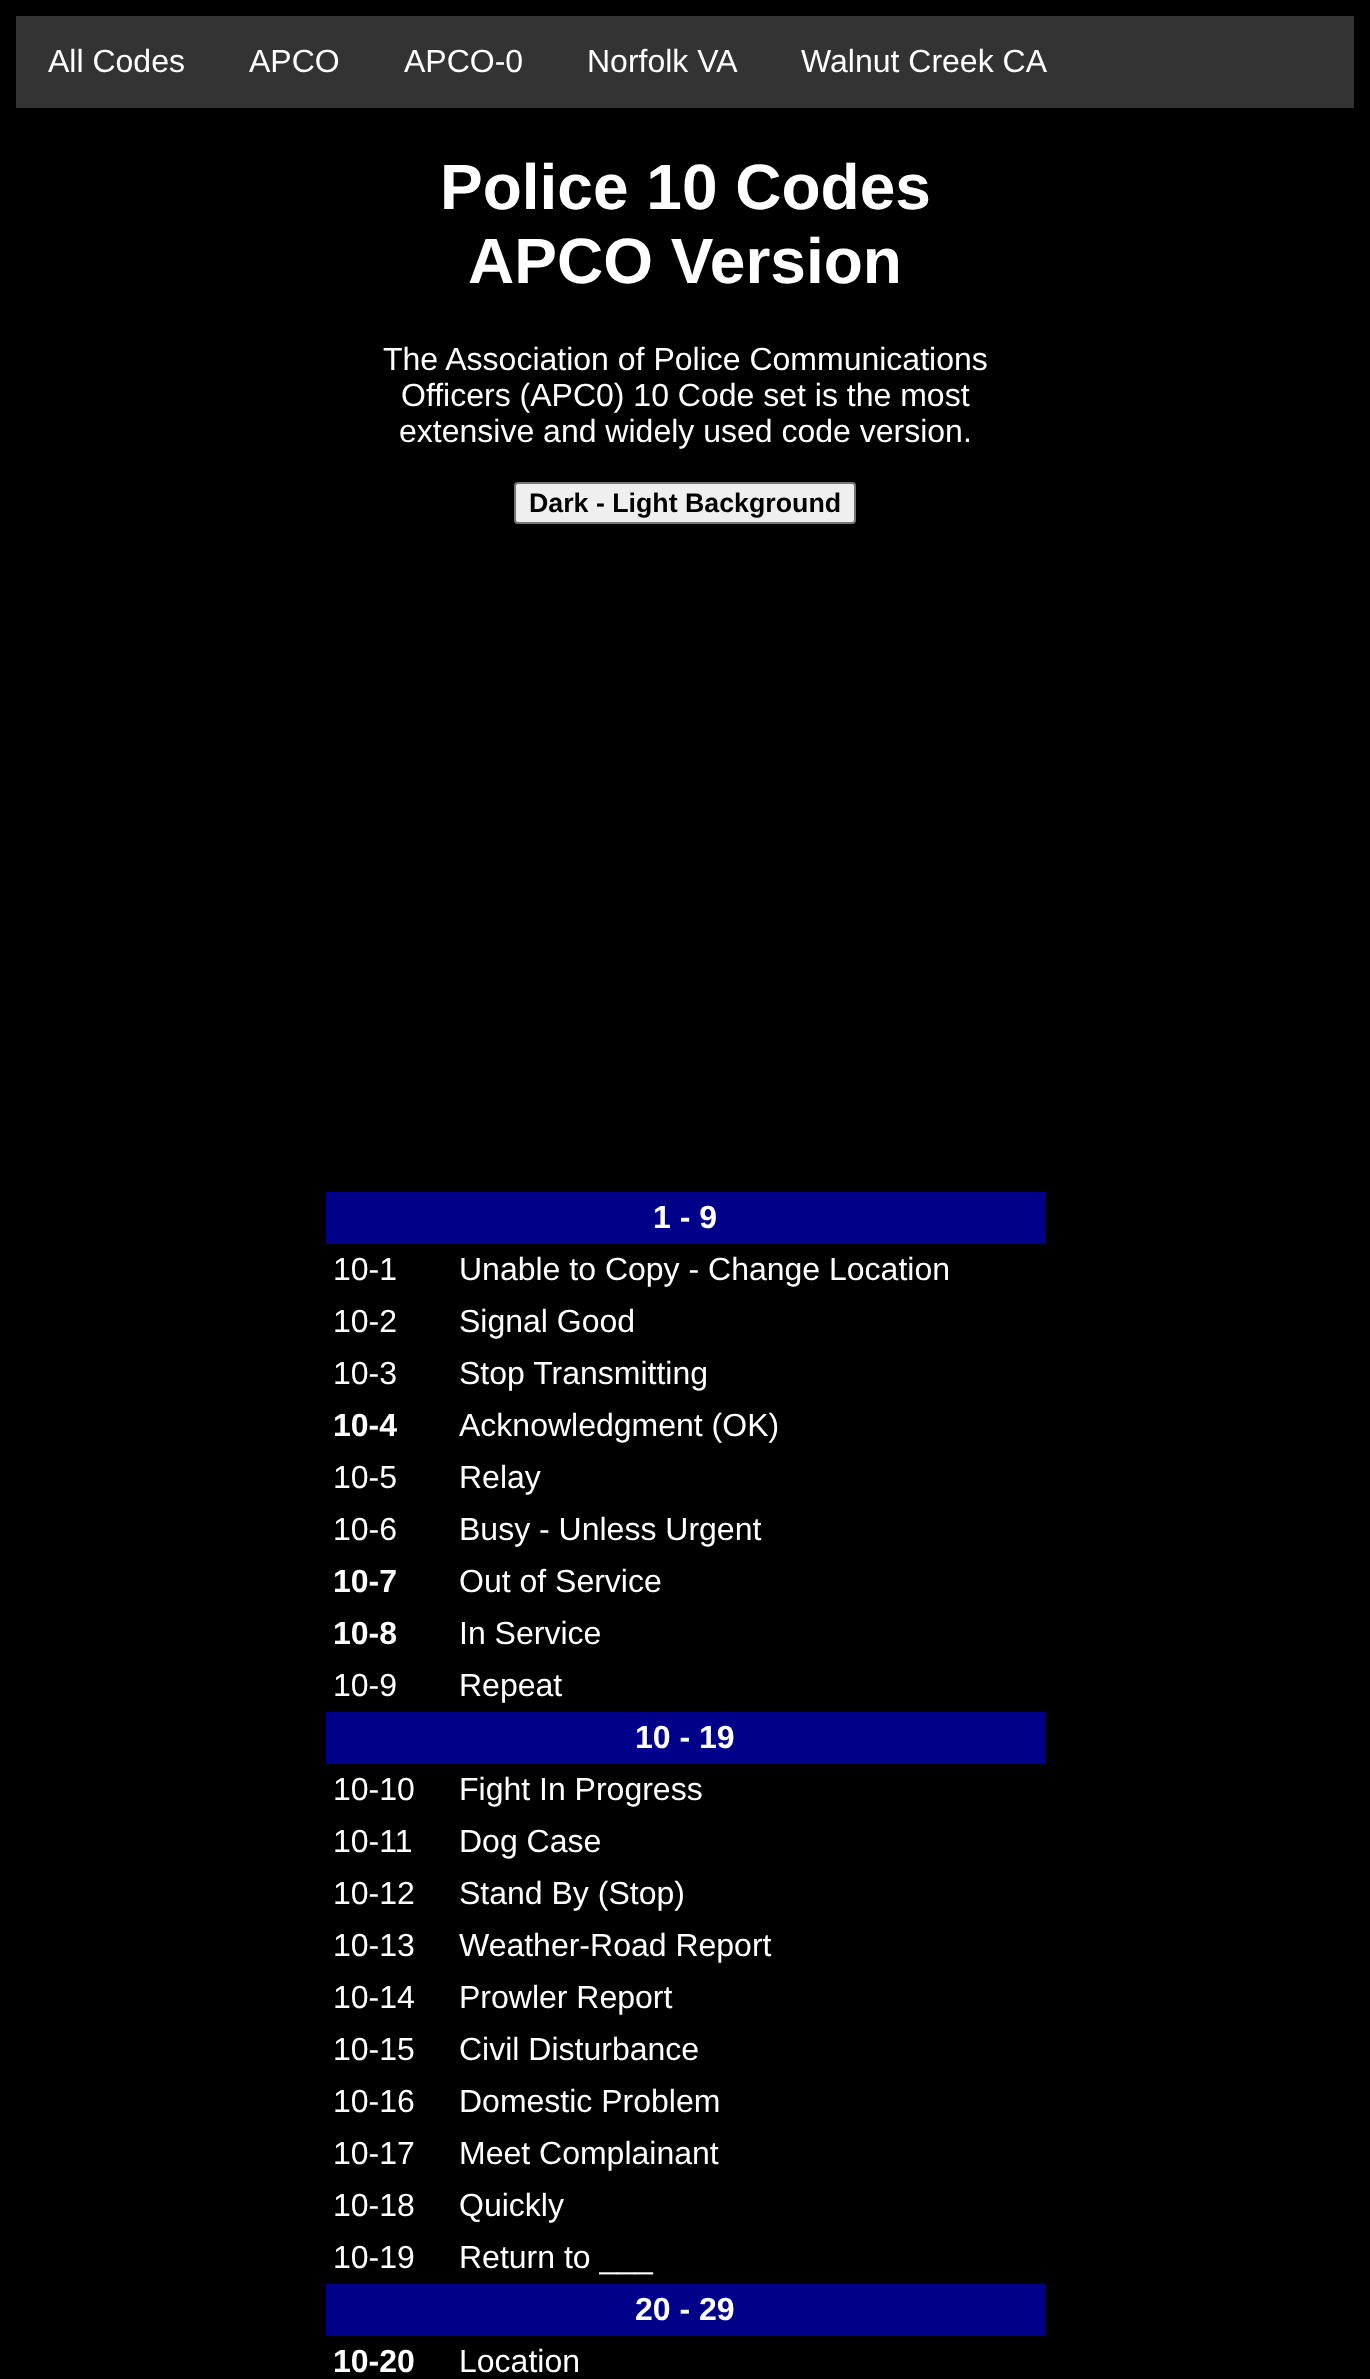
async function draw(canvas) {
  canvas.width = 1370
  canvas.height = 2379
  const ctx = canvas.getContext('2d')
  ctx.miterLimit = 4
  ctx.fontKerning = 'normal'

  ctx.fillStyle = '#000'
  ctx.fillRect(0, 0, 1370, 2379)
  ctx.fillStyle = '#333'
  ctx.fillRect(16, 16, 1338, 92)
  ctx.font = '32px Liberation Sans'
  ctx.fillStyle = '#fff'
  ctx.fillText('All Codes', 48, 72)
  ctx.fillText('APCO', 249, 72)
  ctx.fillText('APCO-0', 404, 72)
  ctx.fillText('Norfolk VA', 587, 72)
  ctx.fillText('Walnut Creek CA', 801, 72)
  ctx.font = 'bold 64px Liberation Sans'
  ctx.fillText('Police 10 Codes', 440, 209)
  ctx.fillText('APCO Version', 468, 283)
  ctx.font = '32px Liberation Sans'
  ctx.fillText('The Association of Police Communications', 383, 370)
  ctx.fillText('Officers (APC0) 10 Code set is the most', 401, 406)
  ctx.fillText('extensive and widely used code version.', 399, 442)
  ctx.fillStyle = '#efefef'
  ctx.beginPath()
  ctx.roundRect(515, 483, 340, 40, 3)
  ctx.fill()
  ctx.strokeStyle = '#767676'
  ctx.lineWidth = 2
  ctx.stroke()
  ctx.font = 'bold 26.75px Liberation Sans'
  ctx.fillStyle = '#000'
  ctx.fillText('Dark - Light Background', 529, 512)
  ctx.fillStyle = '#008'
  ctx.fillRect(326, 1192, 720, 52)
  ctx.font = 'bold 32px Liberation Sans'
  ctx.fillStyle = '#fff'
  ctx.fillText('1 - 9', 653, 1228)
  ctx.font = '32px Liberation Sans'
  ctx.fillText('10-1', 333, 1280)
  ctx.fillText('Unable to Copy - Change Location', 459, 1280)
  ctx.fillText('10-2', 333, 1332)
  ctx.fillText('Signal Good', 459, 1332)
  ctx.fillText('10-3', 333, 1384)
  ctx.fillText('Stop Transmitting', 459, 1384)
  ctx.font = 'bold 32px Liberation Sans'
  ctx.fillText('10-4', 333, 1436)
  ctx.font = '32px Liberation Sans'
  ctx.fillText('Acknowledgment (OK)', 459, 1436)
  ctx.fillText('10-5', 333, 1488)
  ctx.fillText('Relay', 459, 1488)
  ctx.fillText('10-6', 333, 1540)
  ctx.fillText('Busy - Unless Urgent', 459, 1540)
  ctx.font = 'bold 32px Liberation Sans'
  ctx.fillText('10-7', 333, 1592)
  ctx.font = '32px Liberation Sans'
  ctx.fillText('Out of Service', 459, 1592)
  ctx.font = 'bold 32px Liberation Sans'
  ctx.fillText('10-8', 333, 1644)
  ctx.font = '32px Liberation Sans'
  ctx.fillText('In Service', 459, 1644)
  ctx.fillText('10-9', 333, 1696)
  ctx.fillText('Repeat', 459, 1696)
  ctx.fillStyle = '#008'
  ctx.fillRect(326, 1712, 720, 52)
  ctx.font = 'bold 32px Liberation Sans'
  ctx.fillStyle = '#fff'
  ctx.fillText('10 - 19', 635, 1748)
  ctx.font = '32px Liberation Sans'
  ctx.fillText('10-10', 333, 1800)
  ctx.fillText('Fight In Progress', 459, 1800)
  ctx.fillText('10-11', 333, 1852)
  ctx.fillText('Dog Case', 459, 1852)
  ctx.fillText('10-12', 333, 1904)
  ctx.fillText('Stand By (Stop)', 459, 1904)
  ctx.fillText('10-13', 333, 1956)
  ctx.fillText('Weather-Road Report', 459, 1956)
  ctx.fillText('10-14', 333, 2008)
  ctx.fillText('Prowler Report', 459, 2008)
  ctx.fillText('10-15', 333, 2060)
  ctx.fillText('Civil Disturbance', 459, 2060)
  ctx.fillText('10-16', 333, 2112)
  ctx.fillText('Domestic Problem', 459, 2112)
  ctx.fillText('10-17', 333, 2164)
  ctx.fillText('Meet Complainant', 459, 2164)
  ctx.fillText('10-18', 333, 2216)
  ctx.fillText('Quickly', 459, 2216)
  ctx.fillText('10-19', 333, 2268)
  ctx.fillText('Return to ___', 459, 2268)
  ctx.fillStyle = '#008'
  ctx.fillRect(326, 2284, 720, 52)
  ctx.font = 'bold 32px Liberation Sans'
  ctx.fillStyle = '#fff'
  ctx.fillText('20 - 29', 635, 2320)
  ctx.fillText('10-20', 333, 2372)
  ctx.font = '32px Liberation Sans'
  ctx.fillText('Location', 459, 2372)
}

draw(document.querySelector('canvas'))
